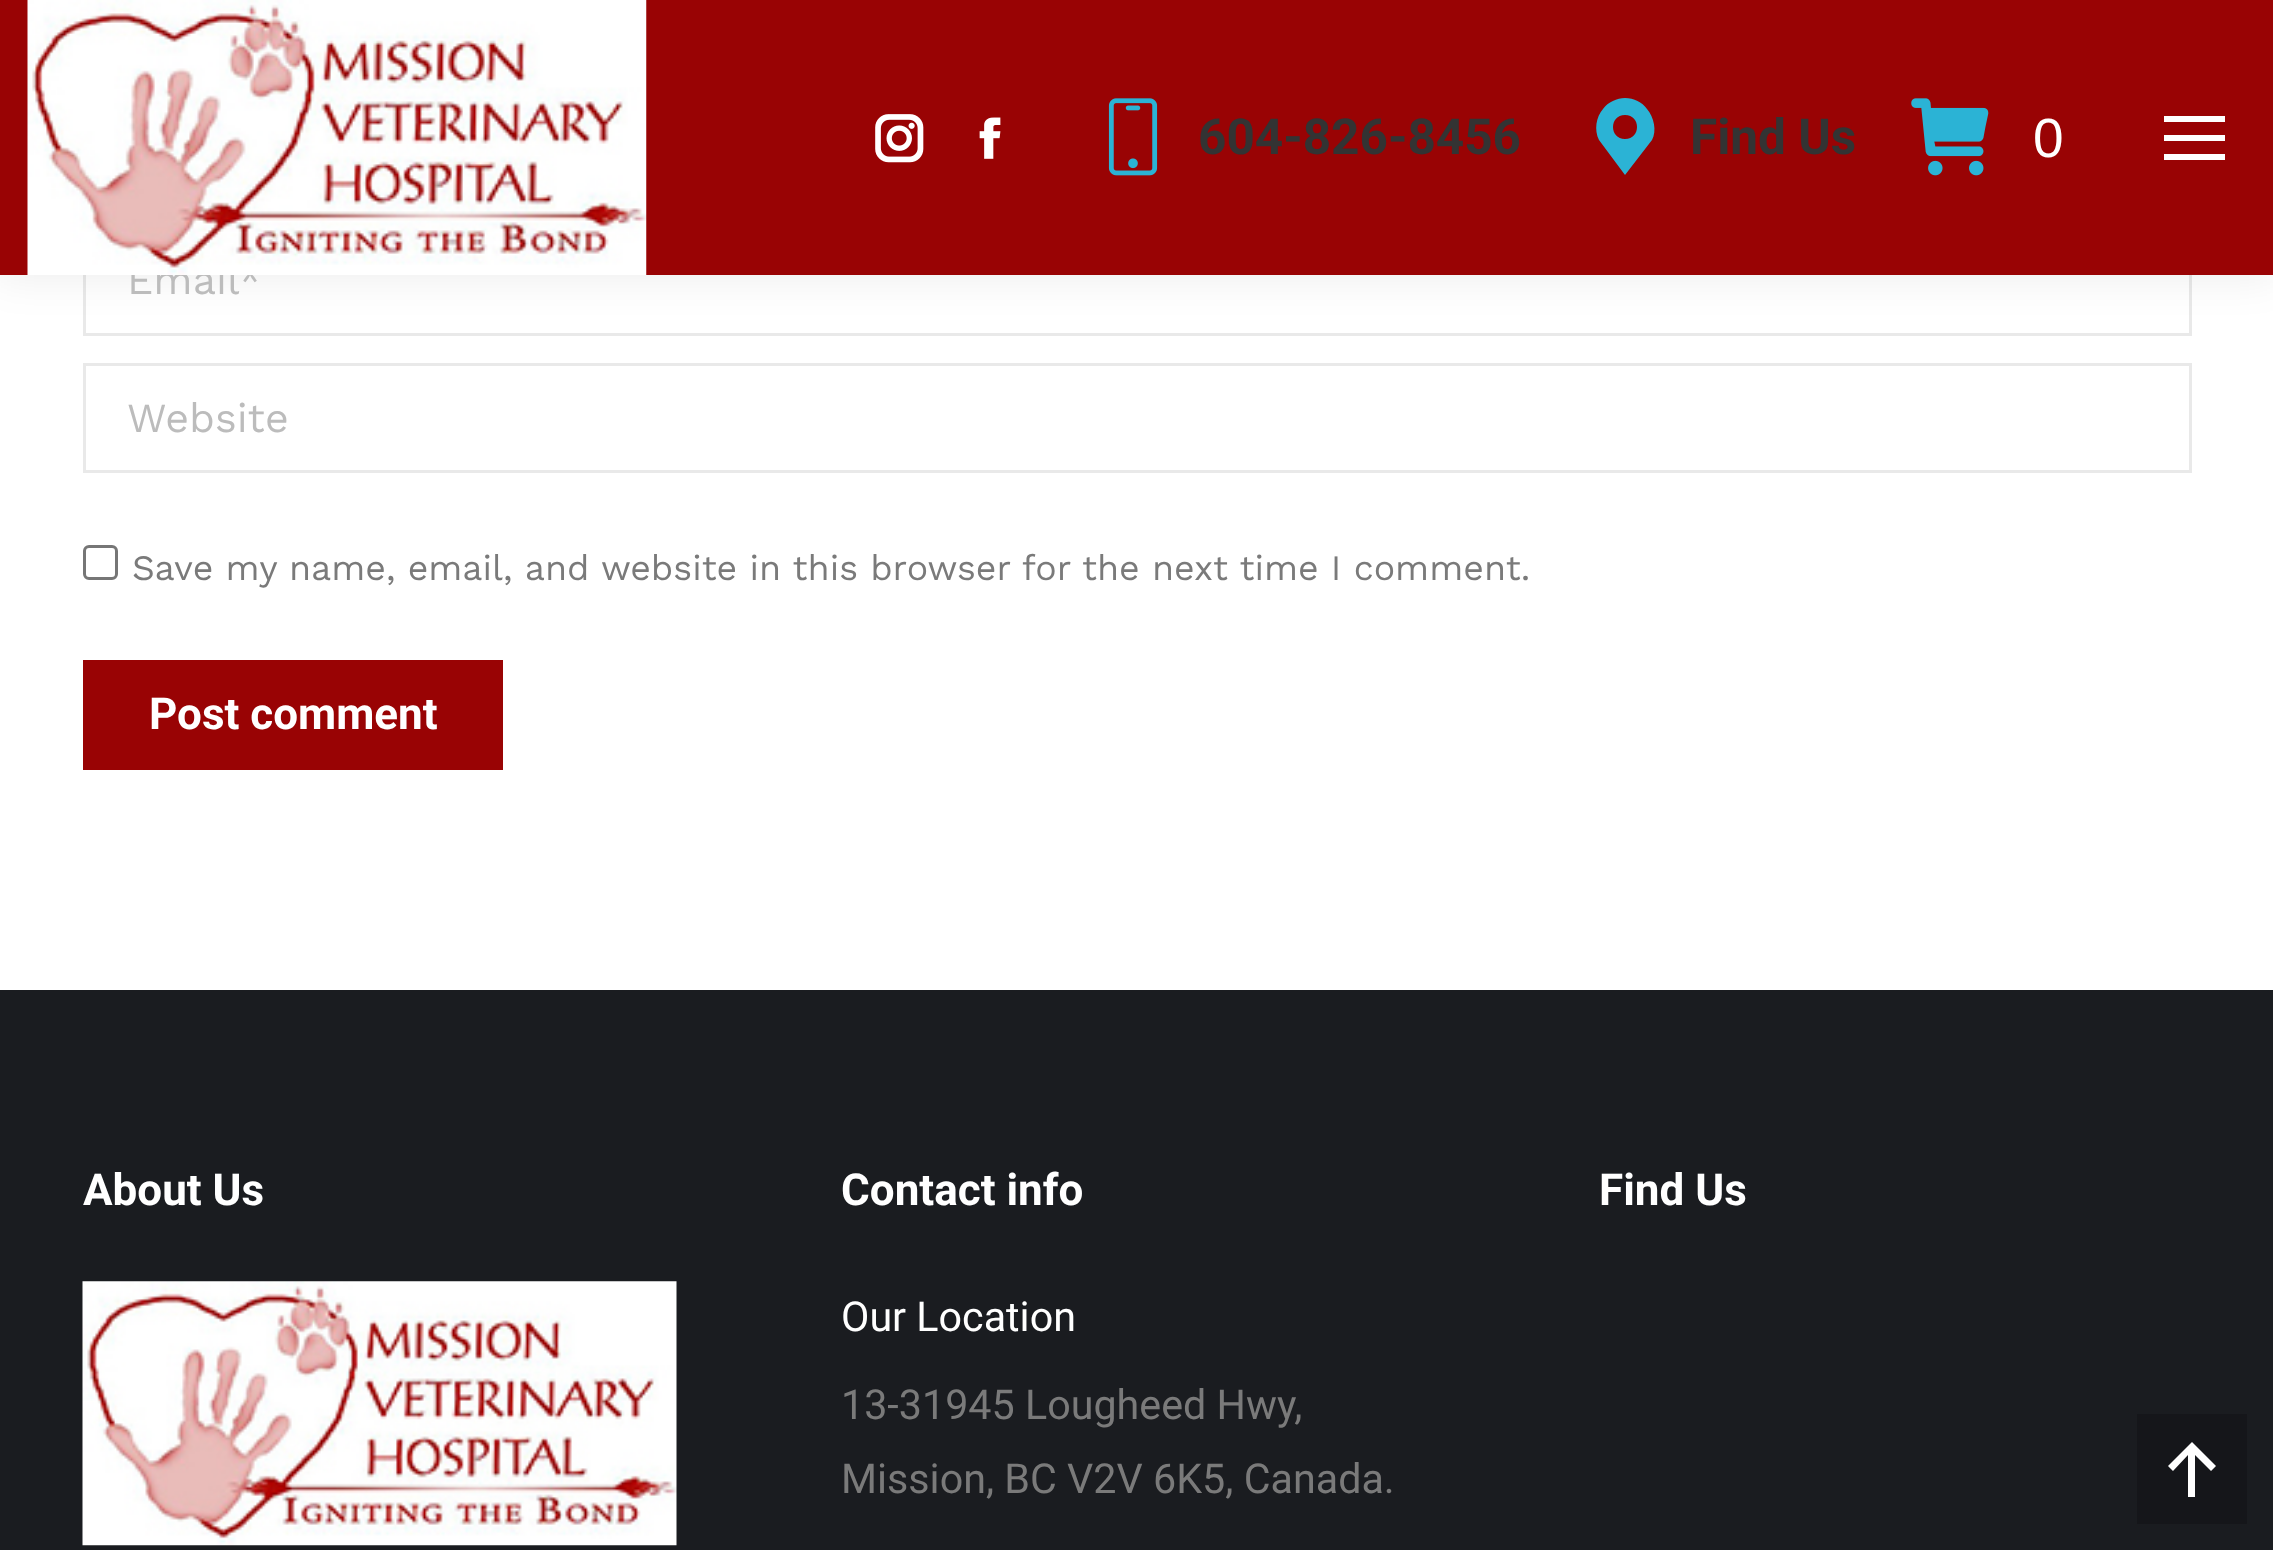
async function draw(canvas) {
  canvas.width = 2273
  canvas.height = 1550
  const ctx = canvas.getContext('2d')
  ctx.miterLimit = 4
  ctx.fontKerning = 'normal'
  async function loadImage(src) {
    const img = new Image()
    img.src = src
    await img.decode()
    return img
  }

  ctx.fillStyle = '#fff'
  ctx.fillRect(0, 0, 2273, 1550)
  ctx.strokeStyle = '#e9e9e9'
  ctx.lineWidth = 3
  ctx.strokeRect(84.5, 227.5, 2106, 107)
  ctx.fillStyle = '#00000012'
  ctx.filter = 'blur(20.5px)'
  ctx.beginPath()
  ctx.rect(-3, -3, 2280, 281)
  ctx.fill()
  ctx.filter = 'none'
  ctx.font = '41.25px Work Sans'
  ctx.fillStyle = '#bcbcbc'
  ctx.fillText('Email*', 127, 294)
  ctx.fillStyle = '#990304'
  ctx.fillRect(0, 0, 2273, 275)
  ctx.drawImage(await loadImage('image0.png'), 27, 0, 620, 275)
  ctx.drawImage(await loadImage('image1.png'), 875, 114, 49, 49)
  ctx.drawImage(await loadImage('image2.png'), 979, 117, 22, 42)
  ctx.drawImage(await loadImage('image3.png'), 1108, 98, 50, 78)
  ctx.font = 'bold 49.5px Roboto'
  ctx.fillStyle = '#333'
  ctx.fillText('604-826-8456', 1198, 154)
  ctx.fillStyle = '#2bb3d5'
  ctx.beginPath()
  ctx.moveTo(1625, 98)
  ctx.bezierCurveTo(1617, 98, 1608, 102, 1603, 109)
  ctx.bezierCurveTo(1596, 117, 1594, 130, 1599, 140)
  ctx.lineTo(1625, 175)
  ctx.lineTo(1652, 140)
  ctx.bezierCurveTo(1657, 131, 1654, 117, 1647, 109)
  ctx.bezierCurveTo(1642, 102, 1634, 98, 1625, 98)
  ctx.closePath()
  ctx.moveTo(1625, 139)
  ctx.bezierCurveTo(1609, 139, 1609, 115, 1625, 115)
  ctx.bezierCurveTo(1641, 115, 1641, 139, 1625, 139)
  ctx.closePath()
  ctx.fill()
  ctx.fillStyle = '#333'
  ctx.fillText('Find Us', 1690, 154)
  ctx.drawImage(await loadImage('image4.png'), 1911, 98, 78, 78)
  ctx.font = '55px Liberation Sans'
  ctx.fillStyle = '#fff'
  ctx.fillText('0', 2033, 157)
  ctx.fillRect(2164, 116, 61, 6)
  ctx.fillRect(2164, 135, 61, 6)
  ctx.fillRect(2164, 154, 61, 6)
  ctx.strokeRect(84.5, 364.5, 2106, 107)
  ctx.font = '41.25px Work Sans'
  ctx.fillStyle = '#bcbcbc'
  ctx.fillText('Website', 127, 432)
  ctx.beginPath()
  ctx.roundRect(84.5, 546.5, 32, 32, 4.5)
  ctx.strokeStyle = '#767676'
  ctx.stroke()
  ctx.font = '35.75px Work Sans'
  ctx.fillStyle = '#7a7a7a'
  ctx.fillText('Save my name, email, and website in this browser for the next time I comment.', 132, 580)
  ctx.fillStyle = '#990304'
  ctx.fillRect(83, 660, 420, 110)
  ctx.font = 'bold 44px Roboto'
  ctx.fillStyle = '#fff'
  ctx.fillText('Post comment', 149, 729)
  ctx.fillStyle = '#1a1c20'
  ctx.fillRect(0, 990, 2273, 560)
  ctx.fillStyle = '#fff'
  ctx.fillText('About Us', 83, 1205)
  ctx.drawImage(await loadImage('image5.png'), 82, 1281, 595, 265)
  ctx.fillText('Contact info', 841, 1205)
  ctx.font = '41.25px Roboto'
  ctx.fillText('Our Location', 841, 1331)
  ctx.fillStyle = '#7a7a7a'
  ctx.fillText('13-31945 Lougheed Hwy,', 841, 1419)
  ctx.fillText('Mission, BC V2V 6K5, Canada.', 841, 1493)
  ctx.font = 'bold 44px Roboto'
  ctx.fillStyle = '#fff'
  ctx.fillText('Find Us', 1599, 1205)
  ctx.fillStyle = '#15161a'
  ctx.fillRect(2137, 1414, 110, 110)
  ctx.fillStyle = '#fff'
  ctx.beginPath()
  ctx.moveTo(2168, 1466)
  ctx.lineTo(2173, 1471)
  ctx.lineTo(2188, 1455)
  ctx.lineTo(2188, 1497)
  ctx.lineTo(2195, 1497)
  ctx.lineTo(2195, 1455)
  ctx.lineTo(2211, 1471)
  ctx.lineTo(2216, 1466)
  ctx.lineTo(2192, 1442)
  ctx.closePath()
  ctx.fill()
}

draw(document.querySelector('canvas'))
